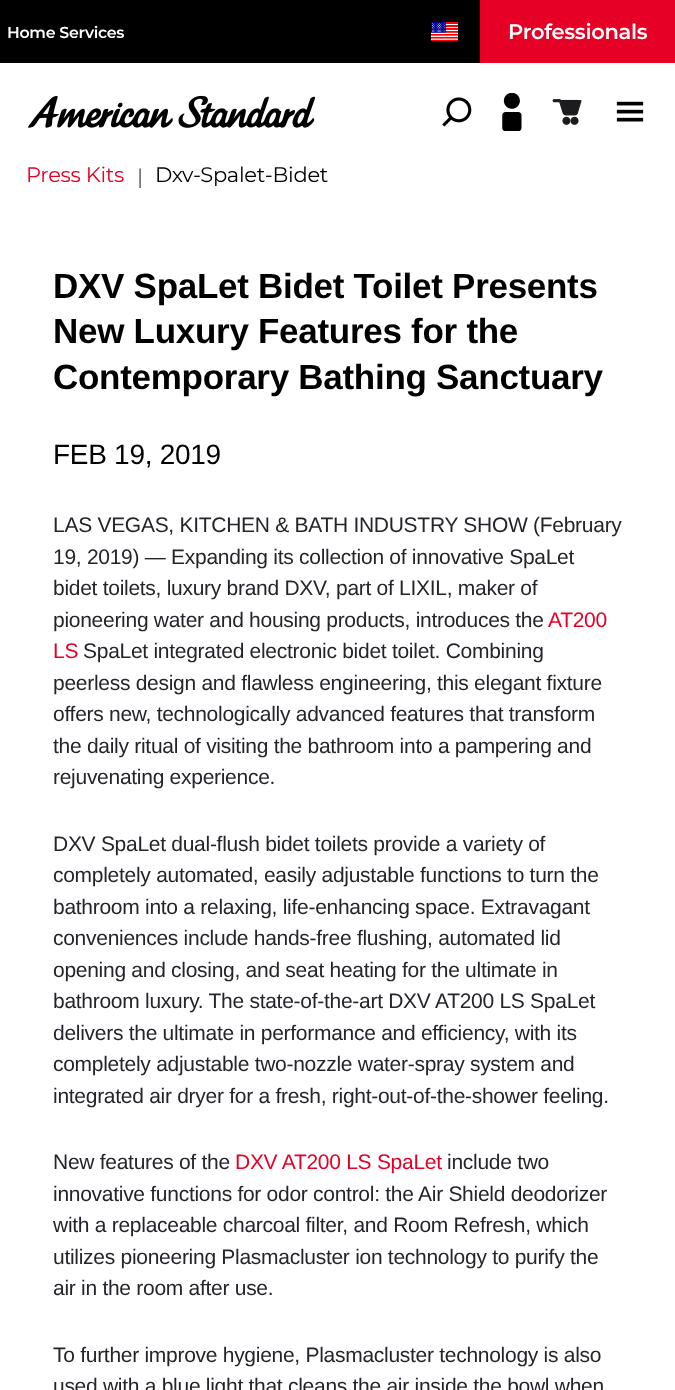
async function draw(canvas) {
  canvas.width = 675
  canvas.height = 1390
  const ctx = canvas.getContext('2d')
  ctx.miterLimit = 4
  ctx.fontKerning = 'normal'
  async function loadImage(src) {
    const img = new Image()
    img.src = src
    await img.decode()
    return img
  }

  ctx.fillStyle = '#fff'
  ctx.fillRect(0, 0, 675, 1390)
  ctx.fillStyle = '#000'
  ctx.fillRect(0, 0, 480, 63)
  ctx.letterSpacing = '-0.28px'
  ctx.font = '600 15.75px Montserrat'
  ctx.fillStyle = '#fff'
  ctx.fillText('Home Services', 7, 38)
  ctx.drawImage(await loadImage('image0.png'), 431, 22, 27, 19)
  ctx.fillStyle = '#e70025'
  ctx.fillRect(480, 0, 195, 63)
  ctx.font = '600 21px Montserrat'
  ctx.fillStyle = '#fff'
  ctx.fillText('Professionals', 508, 39)
  ctx.drawImage(await loadImage('image1.png'), 28, 95, 287, 33)
  ctx.drawImage(await loadImage('image2.png'), 442, 97, 30, 30)
  ctx.drawImage(await loadImage('image3.png'), 502, 93, 20, 38)
  ctx.drawImage(await loadImage('image4.png'), 552, 99, 30, 26)
  ctx.drawImage(await loadImage('image5.png'), 616, 101, 28, 21)
  ctx.font = '21px Montserrat'
  ctx.fillStyle = '#e70026'
  ctx.fillText('Press Kits', 26, 182)
  ctx.fillStyle = '#53565a'
  ctx.fillText('|', 137, 184)
  ctx.fillStyle = '#000'
  ctx.fillText('Dxv-Spalet-Bidet', 155, 182)
  ctx.font = 'bold 35px Liberation Sans'
  ctx.fillText('DXV SpaLet Bidet Toilet Presents', 53, 298)
  ctx.fillText('New Luxury Features for the', 53, 343)
  ctx.fillText('Contemporary Bathing Sanctuary', 53, 389)
  ctx.font = '28px Liberation Sans'
  ctx.fillText('FEB 19, 2019', 53, 464)
  ctx.font = '21px Liberation Sans'
  ctx.fillStyle = '#24242b'
  ctx.fillText('LAS VEGAS, KITCHEN & BATH INDUSTRY SHOW (February', 53, 532)
  ctx.fillText('19, 2019) ― Expanding its collection of innovative SpaLet', 53, 564)
  ctx.fillText('bidet toilets, luxury brand DXV, part of LIXIL, maker of', 53, 595)
  ctx.fillText('pioneering water and housing products, introduces the', 53, 627)
  ctx.fillStyle = '#e70026'
  ctx.fillText('AT200', 548, 627)
  ctx.fillText('LS', 53, 658)
  ctx.fillStyle = '#24242b'
  ctx.fillText('SpaLet integrated electronic bidet toilet. Combining', 83, 658)
  ctx.fillText('peerless design and flawless engineering, this elegant fixture', 53, 690)
  ctx.fillText('offers new, technologically advanced features that transform', 53, 721)
  ctx.fillText('the daily ritual of visiting the bathroom into a pampering and', 53, 753)
  ctx.fillText('rejuvenating experience.', 53, 784)
  ctx.fillText('DXV SpaLet dual-flush bidet toilets provide a variety of', 53, 851)
  ctx.fillText('completely automated, easily adjustable functions to turn the', 53, 882)
  ctx.fillText('bathroom into a relaxing, life-enhancing space. Extravagant', 53, 914)
  ctx.fillText('conveniences include hands-free flushing, automated lid', 53, 945)
  ctx.fillText('opening and closing, and seat heating for the ultimate in', 53, 977)
  ctx.fillText('bathroom luxury. The state-of-the-art DXV AT200 LS SpaLet', 53, 1008)
  ctx.fillText('delivers the ultimate in performance and efficiency, with its', 53, 1040)
  ctx.fillText('completely adjustable two-nozzle water-spray system and', 53, 1071)
  ctx.fillText('integrated air dryer for a fresh, right-out-of-the-shower feeling.', 53, 1103)
  ctx.fillText('New features of the', 53, 1169)
  ctx.fillStyle = '#e70026'
  ctx.fillText('DXV AT200 LS SpaLet', 235, 1169)
  ctx.fillStyle = '#24242b'
  ctx.fillText('include two', 447, 1169)
  ctx.fillText('innovative functions for odor control: the Air Shield deodorizer', 53, 1201)
  ctx.fillText('with a replaceable charcoal filter, and Room Refresh, which', 53, 1232)
  ctx.fillText('utilizes pioneering Plasmacluster ion technology to purify the', 53, 1264)
  ctx.fillText('air in the room after use.', 53, 1295)
  ctx.fillText('To further improve hygiene, Plasmacluster technology is also', 53, 1362)
  ctx.fillText('used with a blue light that cleans the air inside the bowl when', 53, 1393)
}

draw(document.querySelector('canvas'))
